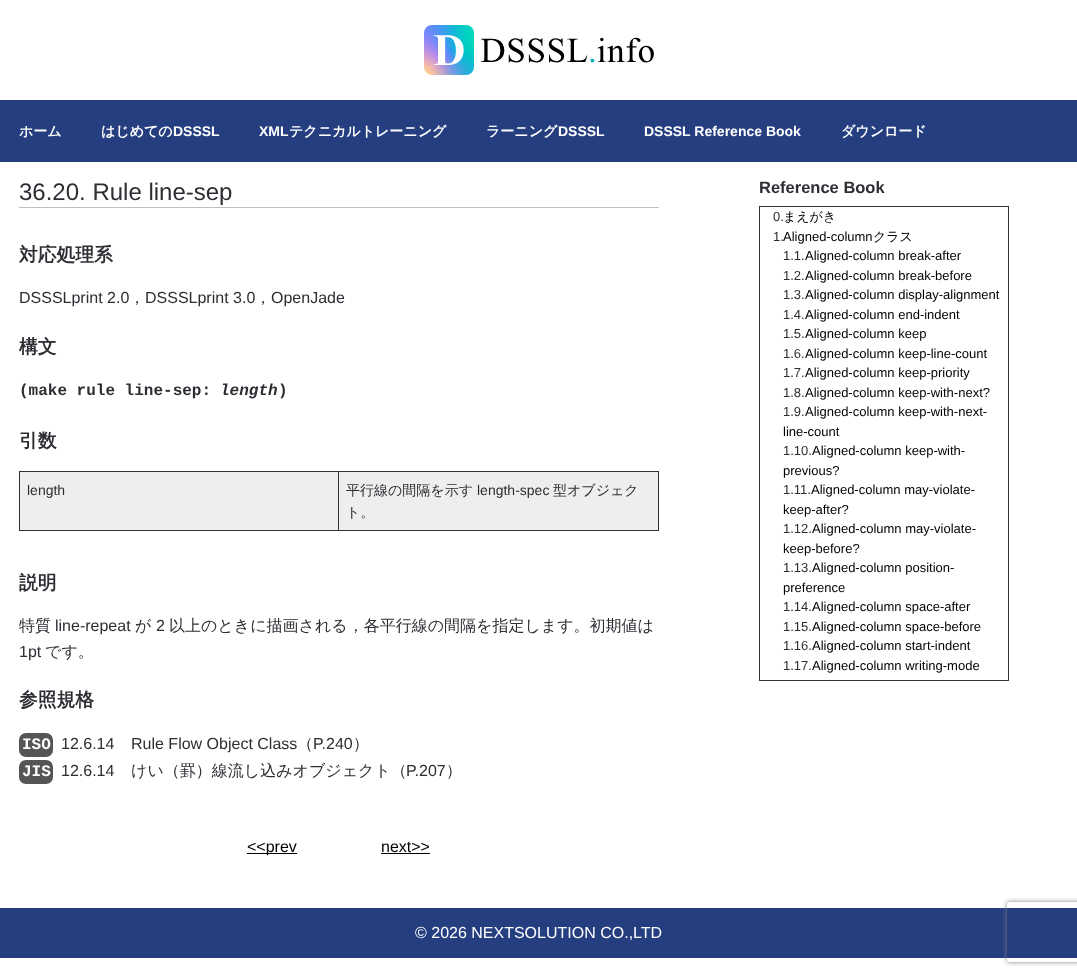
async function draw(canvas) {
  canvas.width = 1077
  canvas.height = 976
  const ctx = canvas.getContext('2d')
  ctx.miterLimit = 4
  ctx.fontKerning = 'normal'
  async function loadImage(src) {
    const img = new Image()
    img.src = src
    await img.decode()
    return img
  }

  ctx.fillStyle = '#fff'
  ctx.fillRect(0, 0, 1077, 976)
  ctx.drawImage(await loadImage('image0.png'), 424, 25, 230, 50)
  ctx.fillStyle = '#253e80'
  ctx.fillRect(0, 100, 1077, 62)
  ctx.font = 'bold 14px WenQuanYi Zen Hei'
  ctx.fillStyle = '#fff'
  ctx.fillText('ホーム', 19, 136)
  ctx.fillText('はじめての', 101, 136)
  ctx.font = 'bold 14px Liberation Sans'
  ctx.fillText('DSSSL', 173, 136)
  ctx.fillText('XML', 259, 136)
  ctx.font = 'bold 14px WenQuanYi Zen Hei'
  ctx.fillText('テクニカルトレーニング', 289, 136)
  ctx.fillText('ラーニング', 486, 136)
  ctx.font = 'bold 14px Liberation Sans'
  ctx.fillText('DSSSL', 558, 136)
  ctx.fillText('DSSSL Reference Book', 644, 136)
  ctx.font = 'bold 14px WenQuanYi Zen Hei'
  ctx.fillText('ダウンロード', 841, 136)
  ctx.fillStyle = '#c0c0c0'
  ctx.fillRect(19, 207, 640, 1)
  ctx.font = '24px Liberation Sans'
  ctx.fillStyle = '#2d2e33'
  ctx.fillText('36.20. Rule line-sep', 19, 200)
  ctx.font = 'bold 18.75px WenQuanYi Zen Hei'
  ctx.fillText('対応処理系', 19, 261)
  ctx.font = '16px Liberation Sans'
  ctx.fillText('DSSSLprint 2.0', 19, 303)
  ctx.font = '500 16px WenQuanYi Zen Hei'
  ctx.fillText('，', 129, 303)
  ctx.font = '16px Liberation Sans'
  ctx.fillText('DSSSLprint 3.0', 145, 303)
  ctx.font = '500 16px WenQuanYi Zen Hei'
  ctx.fillText('，', 255, 303)
  ctx.font = '16px Liberation Sans'
  ctx.fillText('OpenJade', 271, 303)
  ctx.font = 'bold 18.75px WenQuanYi Zen Hei'
  ctx.fillText('構文', 19, 353)
  ctx.font = 'bold 16px Liberation Mono'
  ctx.fillText('(make rule line-sep:', 19, 395)
  ctx.font = 'italic bold 16px Liberation Mono'
  ctx.fillText('length', 220, 395)
  ctx.font = 'bold 16px Liberation Mono'
  ctx.fillText(')', 278, 395)
  ctx.font = 'bold 18.75px WenQuanYi Zen Hei'
  ctx.fillText('引数', 19, 447)
  ctx.fillStyle = '#303135'
  ctx.fillRect(19, 471, 640, 1)
  ctx.fillRect(658, 471, 1, 60)
  ctx.fillRect(19, 530, 640, 1)
  ctx.fillRect(19, 471, 1, 60)
  ctx.fillStyle = '#eee'
  ctx.fillRect(20, 472, 318, 58)
  ctx.font = '14px Liberation Sans'
  ctx.fillStyle = '#2d2e33'
  ctx.fillText('length', 27, 495)
  ctx.fillStyle = '#eee'
  ctx.fillRect(339, 472, 319, 58)
  ctx.fillStyle = '#303135'
  ctx.fillRect(338, 471, 1, 60)
  ctx.font = '500 14px WenQuanYi Zen Hei'
  ctx.fillStyle = '#2d2e33'
  ctx.fillText('平行線の間隔を示す', 346, 495)
  ctx.font = '14px Liberation Sans'
  ctx.fillText('length-spec', 477, 495)
  ctx.font = '500 14px WenQuanYi Zen Hei'
  ctx.fillText('型オブジェク', 553, 495)
  ctx.fillText('ト。', 346, 517)
  ctx.font = 'bold 18.75px WenQuanYi Zen Hei'
  ctx.fillText('説明', 19, 589)
  ctx.font = '500 16px WenQuanYi Zen Hei'
  ctx.fillText('特質', 19, 631)
  ctx.font = '16px Liberation Sans'
  ctx.fillText('line-repeat', 55, 631)
  ctx.font = '500 16px WenQuanYi Zen Hei'
  ctx.fillText('が', 135, 631)
  ctx.font = '16px Liberation Sans'
  ctx.fillText('2', 156, 631)
  ctx.font = '500 16px WenQuanYi Zen Hei'
  ctx.fillText('以上のときに描画される，各平行線の間隔を指定します。初期値は', 169, 631)
  ctx.font = '16px Liberation Sans'
  ctx.fillText('1pt', 19, 657)
  ctx.font = '500 16px WenQuanYi Zen Hei'
  ctx.fillText('です。', 45, 657)
  ctx.font = 'bold 18.75px WenQuanYi Zen Hei'
  ctx.fillText('参照規格', 19, 706)
  ctx.fillStyle = '#555'
  ctx.beginPath()
  ctx.roundRect(20.5, 734.5, 31, 21, 5.5)
  ctx.fill()
  ctx.strokeStyle = '#555'
  ctx.lineWidth = 3
  ctx.stroke()
  ctx.font = 'bold 16px Liberation Mono'
  ctx.fillStyle = '#fff'
  ctx.fillText('ISO', 22, 749)
  ctx.font = '16px Liberation Sans'
  ctx.fillStyle = '#2d2e33'
  ctx.fillText('12.6.14', 61, 749)
  ctx.fillText('Rule Flow Object Class', 131, 749)
  ctx.font = '500 16px WenQuanYi Zen Hei'
  ctx.fillText('（', 297, 749)
  ctx.font = '16px Liberation Sans'
  ctx.fillText('P.240', 313, 749)
  ctx.font = '500 16px WenQuanYi Zen Hei'
  ctx.fillText('）', 353, 749)
  ctx.fillStyle = '#555'
  ctx.beginPath()
  ctx.roundRect(20.5, 761.5, 31, 21, 5.5)
  ctx.fill()
  ctx.stroke()
  ctx.font = 'bold 16px Liberation Mono'
  ctx.fillStyle = '#fff'
  ctx.fillText('JIS', 22, 776)
  ctx.font = '16px Liberation Sans'
  ctx.fillStyle = '#2d2e33'
  ctx.fillText('12.6.14', 61, 776)
  ctx.font = '500 16px WenQuanYi Zen Hei'
  ctx.fillText('けい（罫）線流し込みオブジェクト（', 131, 776)
  ctx.font = '16px Liberation Sans'
  ctx.fillText('P.207', 406, 776)
  ctx.font = '500 16px WenQuanYi Zen Hei'
  ctx.fillText('）', 446, 776)
  ctx.fillStyle = '#000'
  ctx.fillRect(247, 853, 50, 1)
  ctx.font = '16px Liberation Sans'
  ctx.fillText('<<prev', 247, 852)
  ctx.fillText('next>>', 381, 852)
  ctx.fillRect(381, 853, 49, 1)
  ctx.font = 'bold 16.5px Liberation Sans'
  ctx.fillStyle = '#2d2e33'
  ctx.fillText('Reference Book', 759, 193)
  ctx.strokeStyle = '#303135'
  ctx.lineWidth = 1
  ctx.strokeRect(759.5, 206.5, 249, 474)
  ctx.font = '13px Liberation Sans'
  ctx.fillText('0.', 773, 221)
  ctx.font = '500 13px WenQuanYi Zen Hei'
  ctx.fillStyle = '#000'
  ctx.fillText('まえがき', 783, 221)
  ctx.font = '13px Liberation Sans'
  ctx.fillStyle = '#2d2e33'
  ctx.fillText('1.', 773, 241)
  ctx.fillStyle = '#000'
  ctx.fillText('Aligned-column', 783, 241)
  ctx.font = '500 13px WenQuanYi Zen Hei'
  ctx.fillText('クラス', 873, 241)
  ctx.font = '13px Liberation Sans'
  ctx.fillStyle = '#2d2e33'
  ctx.fillText('1.1.', 783, 260)
  ctx.fillStyle = '#000'
  ctx.fillText('Aligned-column break-after', 805, 260)
  ctx.fillStyle = '#2d2e33'
  ctx.fillText('1.2.', 783, 280)
  ctx.fillStyle = '#000'
  ctx.fillText('Aligned-column break-before', 805, 280)
  ctx.fillStyle = '#2d2e33'
  ctx.fillText('1.3.', 783, 299)
  ctx.fillStyle = '#000'
  ctx.fillText('Aligned-column display-alignment', 805, 299)
  ctx.fillStyle = '#2d2e33'
  ctx.fillText('1.4.', 783, 319)
  ctx.fillStyle = '#000'
  ctx.fillText('Aligned-column end-indent', 805, 319)
  ctx.fillStyle = '#2d2e33'
  ctx.fillText('1.5.', 783, 338)
  ctx.fillStyle = '#000'
  ctx.fillText('Aligned-column keep', 805, 338)
  ctx.fillStyle = '#2d2e33'
  ctx.fillText('1.6.', 783, 358)
  ctx.fillStyle = '#000'
  ctx.fillText('Aligned-column keep-line-count', 805, 358)
  ctx.fillStyle = '#2d2e33'
  ctx.fillText('1.7.', 783, 377)
  ctx.fillStyle = '#000'
  ctx.fillText('Aligned-column keep-priority', 805, 377)
  ctx.fillStyle = '#2d2e33'
  ctx.fillText('1.8.', 783, 397)
  ctx.fillStyle = '#000'
  ctx.fillText('Aligned-column keep-with-next?', 805, 397)
  ctx.fillStyle = '#2d2e33'
  ctx.fillText('1.9.', 783, 416)
  ctx.fillStyle = '#000'
  ctx.fillText('Aligned-column keep-with-next-', 805, 416)
  ctx.fillText('line-count', 783, 436)
  ctx.fillStyle = '#2d2e33'
  ctx.fillText('1.10.', 783, 455)
  ctx.fillStyle = '#000'
  ctx.fillText('Aligned-column keep-with-', 812, 455)
  ctx.fillText('previous?', 783, 475)
  ctx.fillStyle = '#2d2e33'
  ctx.fillText('1.11.', 783, 494)
  ctx.fillStyle = '#000'
  ctx.fillText('Aligned-column may-violate-', 811, 494)
  ctx.fillText('keep-after?', 783, 514)
  ctx.fillStyle = '#2d2e33'
  ctx.fillText('1.12.', 783, 533)
  ctx.fillStyle = '#000'
  ctx.fillText('Aligned-column may-violate-', 812, 533)
  ctx.fillText('keep-before?', 783, 553)
  ctx.fillStyle = '#2d2e33'
  ctx.fillText('1.13.', 783, 572)
  ctx.fillStyle = '#000'
  ctx.fillText('Aligned-column position-', 812, 572)
  ctx.fillText('preference', 783, 592)
  ctx.fillStyle = '#2d2e33'
  ctx.fillText('1.14.', 783, 611)
  ctx.fillStyle = '#000'
  ctx.fillText('Aligned-column space-after', 812, 611)
  ctx.fillStyle = '#2d2e33'
  ctx.fillText('1.15.', 783, 631)
  ctx.fillStyle = '#000'
  ctx.fillText('Aligned-column space-before', 812, 631)
  ctx.fillStyle = '#2d2e33'
  ctx.fillText('1.16.', 783, 650)
  ctx.fillStyle = '#000'
  ctx.fillText('Aligned-column start-indent', 812, 650)
  ctx.fillStyle = '#2d2e33'
  ctx.fillText('1.17.', 783, 670)
  ctx.fillStyle = '#000'
  ctx.fillText('Aligned-column writing-mode', 812, 670)
  ctx.fillStyle = '#253e80'
  ctx.fillRect(0, 908, 1077, 50)
  ctx.font = '16px Liberation Sans'
  ctx.fillStyle = '#fff'
  ctx.fillText('© 2026 NEXTSOLUTION CO.,LTD', 415, 938)
  ctx.save()
  ctx.beginPath()
  ctx.moveTo(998, 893)
  ctx.lineTo(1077, 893)
  ctx.lineTo(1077, 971)
  ctx.lineTo(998, 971)
  ctx.closePath()
  ctx.moveTo(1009, 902)
  ctx.lineTo(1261, 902)
  ctx.bezierCurveTo(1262, 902, 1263, 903, 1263, 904)
  ctx.lineTo(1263, 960)
  ctx.bezierCurveTo(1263, 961, 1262, 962, 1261, 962)
  ctx.lineTo(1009, 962)
  ctx.bezierCurveTo(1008, 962, 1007, 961, 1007, 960)
  ctx.lineTo(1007, 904)
  ctx.bezierCurveTo(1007, 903, 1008, 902, 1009, 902)
  ctx.closePath()
  ctx.clip('evenodd')
  ctx.fillStyle = '#808080'
  ctx.filter = 'blur(2.5px)'
  ctx.beginPath()
  ctx.roundRect(1007, 902, 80, 60, 2)
  ctx.fill()
  ctx.filter = 'none'
  ctx.restore()
}

draw(document.querySelector('canvas'))
